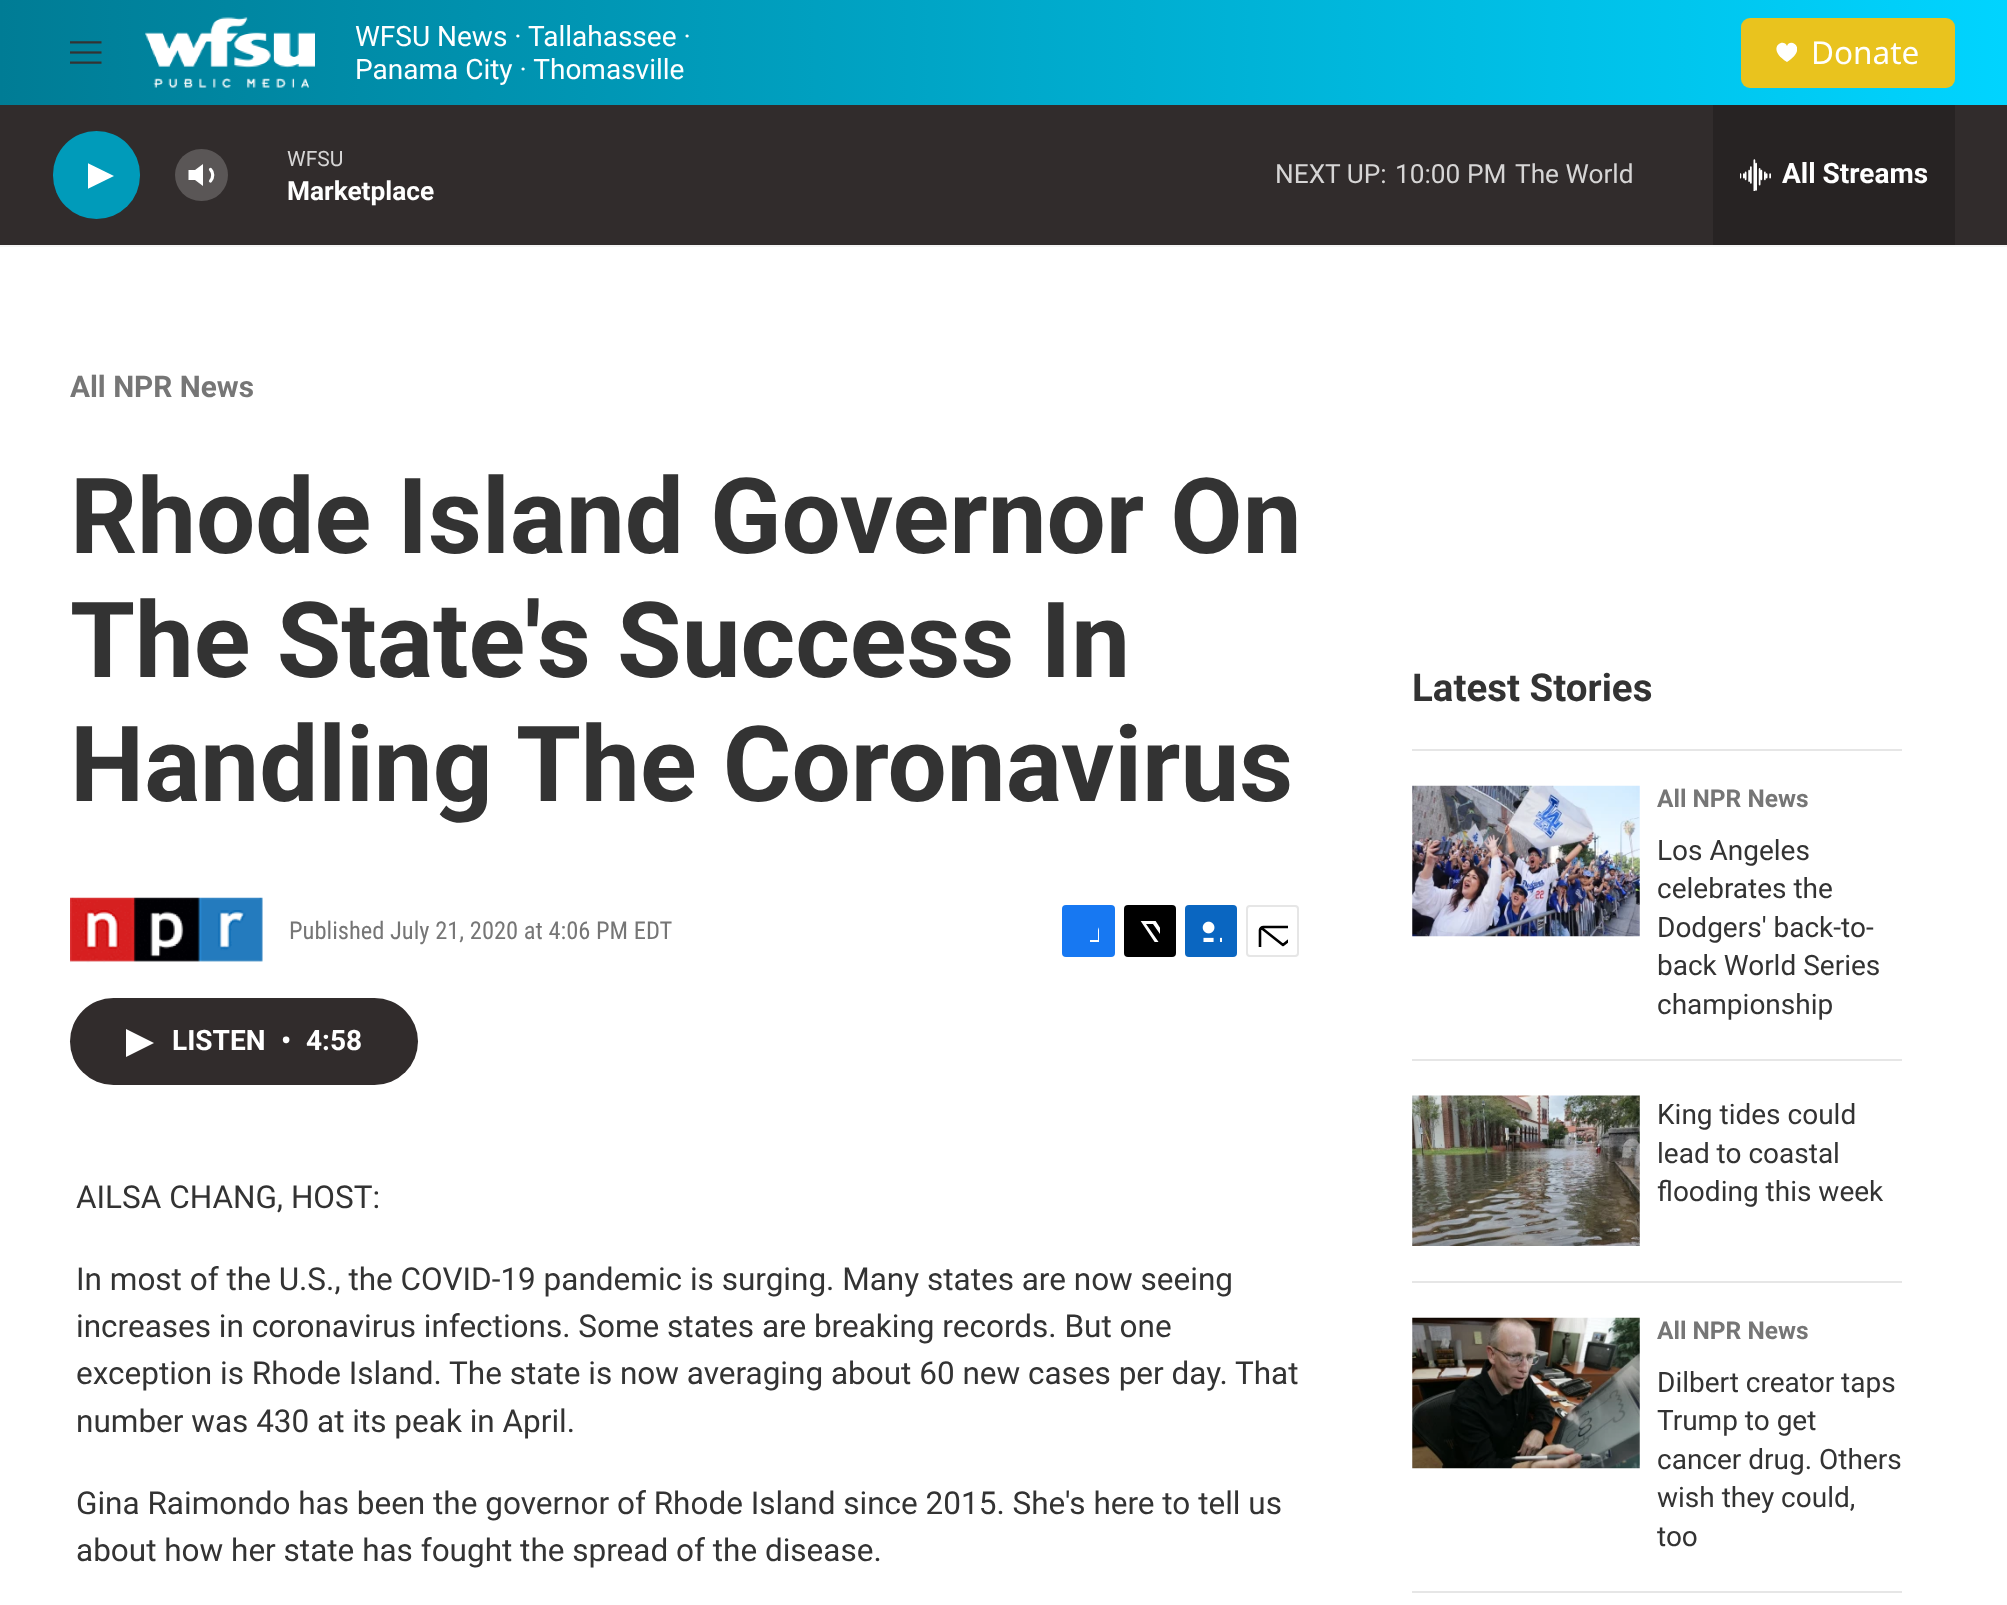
async function draw(canvas) {
  canvas.width = 2007
  canvas.height = 1605
  const ctx = canvas.getContext('2d')
  ctx.miterLimit = 4
  ctx.fontKerning = 'normal'
  async function loadImage(src) {
    const img = new Image()
    img.src = src
    await img.decode()
    return img
  }
  let gradient

  ctx.fillStyle = '#fff'
  ctx.fillRect(0, 0, 2007, 1605)
  gradient = ctx.createLinearGradient(0, 123, 2007, 122)
  gradient.addColorStop(0, '#007c95')
  gradient.addColorStop(0.35, '#009bba')
  gradient.addColorStop(1, '#00d4ff')
  ctx.fillStyle = gradient
  ctx.fillRect(0, 0, 2007, 105)
  ctx.fillStyle = '#f5f5f5'
  ctx.fillRect(0, 245, 2007, 2)
  ctx.drawImage(await loadImage('image0.png'), 70, 41, 32, 23)
  ctx.drawImage(await loadImage('image1.png'), 145, 17, 170, 71)
  ctx.font = '28px Roboto'
  ctx.fillStyle = '#fff'
  ctx.fillText('WFSU News · Tallahassee ·', 355, 46)
  ctx.fillText('Panama City · Thomasville', 355, 79)
  ctx.fillStyle = '#e9c31e'
  ctx.beginPath()
  ctx.roundRect(1741, 18, 214, 70, 9)
  ctx.fill()
  ctx.save()
  ctx.beginPath()
  ctx.rect(1776, 42, 21, 21)
  ctx.clip()
  ctx.fillStyle = '#fff'
  ctx.beginPath()
  ctx.moveTo(1787, 46)
  ctx.bezierCurveTo(1783.5, 37, 1765, 48.5, 1787, 62)
  ctx.bezierCurveTo(1808.5, 48.5, 1790, 37, 1787, 46)
  ctx.closePath()
  ctx.fill()
  ctx.restore()
  ctx.font = '31.5px Noto Sans'
  ctx.fillStyle = '#fff'
  ctx.fillText('Donate', 1811, 64)
  ctx.fillStyle = '#312c2c'
  ctx.fillRect(0, 105, 2007, 140)
  ctx.fillStyle = '#009bba'
  ctx.beginPath()
  ctx.roundRect(53, 131, 87, 88, 43.5)
  ctx.fill()
  ctx.save()
  ctx.beginPath()
  ctx.rect(88, 159, 26, 34)
  ctx.clip()
  ctx.fillStyle = '#fff'
  ctx.beginPath()
  ctx.moveTo(87.5, 163)
  ctx.lineTo(114, 176)
  ctx.lineTo(87.5, 189)
  ctx.closePath()
  ctx.fill()
  ctx.restore()
  ctx.fillStyle = '#fff'
  ctx.beginPath()
  ctx.moveTo(203, 164)
  ctx.lineTo(195, 170)
  ctx.lineTo(188.5, 170)
  ctx.lineTo(188.5, 180)
  ctx.lineTo(195, 180)
  ctx.lineTo(203, 186)
  ctx.closePath()
  ctx.fill()
  ctx.beginPath()
  ctx.moveTo(210.5, 169.5)
  ctx.bezierCurveTo(213.5, 172.5, 213.5, 177.5, 210.5, 181)
  ctx.strokeStyle = '#fff'
  ctx.lineWidth = 3.2
  ctx.lineCap = 'round'
  ctx.lineJoin = 'round'
  ctx.stroke()
  ctx.fillStyle = '#ffffff33'
  ctx.beginPath()
  ctx.roundRect(175, 149, 53, 52, 26)
  ctx.fill()
  ctx.font = '21px Roboto'
  ctx.fillStyle = '#d6d5d5'
  ctx.fillText('WFSU', 287, 166)
  ctx.font = 'bold 26.25px "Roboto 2"'
  ctx.fillStyle = '#fff'
  ctx.fillText('Marketplace', 287, 200)
  ctx.font = '26.25px Roboto'
  ctx.fillStyle = '#d6d5d5'
  ctx.fillText('NEXT UP:', 1275, 183)
  ctx.fillText('10:00 PM', 1395, 183)
  ctx.fillText('The World', 1515, 183)
  ctx.fillStyle = '#272323'
  ctx.fillRect(1713, 105, 242, 140)
  ctx.drawImage(await loadImage('image2.png'), 1740, 159, 31, 32)
  ctx.font = 'bold 28px "Roboto 2"'
  ctx.fillStyle = '#fff'
  ctx.fillText('All Streams', 1782, 183)
  ctx.font = 'bold 29.75px Roboto'
  ctx.fillStyle = '#767676'
  ctx.fillText('All NPR News', 70, 397)
  ctx.font = 'bold 105px Roboto'
  ctx.fillStyle = '#333'
  ctx.fillText('Rhode Island Governor On', 70, 553)
  ctx.fillText('The State\'s Success In', 70, 677)
  ctx.fillText('Handling The Coronavirus', 70, 801)
  ctx.drawImage(await loadImage('image3.png'), 70, 897, 193, 66)
  ctx.font = '24.5px Roboto Condensed'
  ctx.fillStyle = '#767676'
  ctx.fillText('Published July 21, 2020 at 4:06 PM EDT', 289, 939)
  ctx.fillStyle = '#1778f2'
  ctx.beginPath()
  ctx.roundRect(1062, 905, 53, 52, 4)
  ctx.fill()
  ctx.save()
  ctx.beginPath()
  ctx.rect(1078, 921, 21, 21)
  ctx.clip()
  ctx.fillStyle = '#fff'
  ctx.beginPath()
  ctx.moveTo(1107, 957)
  ctx.lineTo(1098, 957)
  ctx.lineTo(1098, 949)
  ctx.lineTo(1090, 949)
  ctx.lineTo(1090, 940)
  ctx.lineTo(1098, 940)
  ctx.lineTo(1098, 930)
  ctx.bezierCurveTo(1100, 921.5, 1108, 920, 1115, 921.5)
  ctx.lineTo(1115, 929)
  ctx.bezierCurveTo(1105, 929, 1107, 932, 1107, 940)
  ctx.lineTo(1115, 940)
  ctx.lineTo(1114, 949)
  ctx.lineTo(1107, 949)
  ctx.closePath()
  ctx.fill()
  ctx.restore()
  ctx.fillStyle = '#000'
  ctx.beginPath()
  ctx.roundRect(1124, 905, 52, 52, 4)
  ctx.fill()
  ctx.save()
  ctx.beginPath()
  ctx.rect(1139, 921, 21, 21)
  ctx.clip()
  ctx.fillStyle = '#fff'
  ctx.beginPath()
  ctx.moveTo(1170, 943)
  ctx.lineTo(1176, 951.5)
  ctx.bezierCurveTo(1176, 953, 1176, 954.5, 1175, 955.5)
  ctx.lineTo(1153, 924)
  ctx.lineTo(1146, 924)
  ctx.lineTo(1169, 957)
  ctx.lineTo(1165, 957)
  ctx.lineTo(1162, 953)
  ctx.lineTo(1158.5, 957)
  ctx.lineTo(1154, 957)
  ctx.lineTo(1160, 950)
  ctx.lineTo(1140, 920)
  ctx.lineTo(1155, 920)
  ctx.lineTo(1168, 940)
  ctx.lineTo(1176, 930.5)
  ctx.lineTo(1176, 935.5)
  ctx.closePath()
  ctx.fill()
  ctx.restore()
  ctx.fillStyle = '#0a66c1'
  ctx.beginPath()
  ctx.roundRect(1185, 905, 52, 52, 4)
  ctx.fill()
  ctx.drawImage(await loadImage('image4.png'), 1202, 921, 20, 21)
  ctx.beginPath()
  ctx.roundRect(1247, 906, 51, 50, 3)
  ctx.strokeStyle = '#e6e6e6'
  ctx.lineWidth = 2
  ctx.lineJoin = 'miter'
  ctx.stroke()
  ctx.save()
  ctx.beginPath()
  ctx.rect(1257, 915, 31, 32)
  ctx.clip()
  ctx.beginPath()
  ctx.moveTo(1305.5, 953.5)
  ctx.bezierCurveTo(1305.5, 955.5, 1304, 957, 1302, 957)
  ctx.lineTo(1263.5, 957)
  ctx.bezierCurveTo(1261.5, 957, 1260, 955.5, 1260, 953.5)
  ctx.lineTo(1260, 930)
  ctx.bezierCurveTo(1260, 928.5, 1261.5, 927, 1263.5, 927)
  ctx.lineTo(1302, 927)
  ctx.bezierCurveTo(1304, 927, 1305.5, 928.5, 1305.5, 930)
  ctx.closePath()
  ctx.moveTo(1304, 928)
  ctx.lineTo(1283, 945)
  ctx.lineTo(1261.5, 928)
  ctx.strokeStyle = '#000'
  ctx.lineWidth = 2.6
  ctx.lineJoin = 'round'
  ctx.stroke()
  ctx.restore()
  ctx.fillStyle = '#312c2c'
  ctx.beginPath()
  ctx.roundRect(70, 998, 348, 87, 43.5)
  ctx.fill()
  ctx.fillStyle = '#fff'
  ctx.beginPath()
  ctx.moveTo(126, 1029)
  ctx.lineTo(154, 1043)
  ctx.lineTo(126, 1057)
  ctx.closePath()
  ctx.fill()
  ctx.font = 'bold 28px "Roboto 2"'
  ctx.fillText('LISTEN', 172, 1050)
  ctx.fillText('•', 281, 1050)
  ctx.fillText('4:58', 306, 1050)
  ctx.font = '31.5px Roboto'
  ctx.fillStyle = '#333'
  ctx.fillText('AILSA CHANG, HOST:', 76, 1208)
  ctx.fillText('In most of the U.S., the COVID-19 pandemic is surging. Many states are now seeing', 76, 1290)
  ctx.fillText('increases in coronavirus infections. Some states are breaking records. But one', 76, 1337)
  ctx.fillText('exception is Rhode Island. The state is now averaging about 60 new cases per day. That', 76, 1384)
  ctx.fillText('number was 430 at its peak in April.', 76, 1432)
  ctx.fillText('Gina Raimondo has been the governor of Rhode Island since 2015. She\'s here to tell us', 76, 1514)
  ctx.fillText('about how her state has fought the spread of the disease.', 76, 1561)
  ctx.fillStyle = '#e6e6e6'
  ctx.fillRect(1412, 749, 490, 2)
  ctx.font = 'bold 38.5px Roboto'
  ctx.fillStyle = '#333'
  ctx.fillText('Latest Stories', 1412, 701)
  ctx.fillStyle = '#e6e6e6'
  ctx.fillRect(1412, 1059, 490, 2)
  ctx.drawImage(await loadImage('image5.png'), 1412, 785, 228, 152)
  ctx.font = 'bold 24.5px Roboto'
  ctx.fillStyle = '#767676'
  ctx.fillText('All NPR News', 1657, 807)
  ctx.font = '28px Roboto'
  ctx.fillStyle = '#333'
  ctx.fillText('Los Angeles', 1657, 860)
  ctx.fillText('celebrates the', 1657, 898)
  ctx.fillText('Dodgers\' back-to-', 1657, 937)
  ctx.fillText('back World Series', 1657, 975)
  ctx.fillText('championship', 1657, 1014)
  ctx.fillStyle = '#e6e6e6'
  ctx.fillRect(1412, 1281, 490, 2)
  ctx.drawImage(await loadImage('image6.png'), 1412, 1095, 228, 151)
  ctx.fillStyle = '#333'
  ctx.fillText('King tides could', 1657, 1124)
  ctx.fillText('lead to coastal', 1657, 1163)
  ctx.fillText('flooding this week', 1657, 1201)
  ctx.fillStyle = '#e6e6e6'
  ctx.fillRect(1412, 1591, 490, 2)
  ctx.drawImage(await loadImage('image7.png'), 1412, 1317, 228, 152)
  ctx.font = 'bold 24.5px Roboto'
  ctx.fillStyle = '#767676'
  ctx.fillText('All NPR News', 1657, 1339)
  ctx.font = '28px Roboto'
  ctx.fillStyle = '#333'
  ctx.fillText('Dilbert creator taps', 1657, 1392)
  ctx.fillText('Trump to get', 1657, 1430)
  ctx.fillText('cancer drug. Others', 1657, 1469)
  ctx.fillText('wish they could,', 1657, 1507)
  ctx.fillText('too', 1657, 1546)
}

draw(document.querySelector('canvas'))
